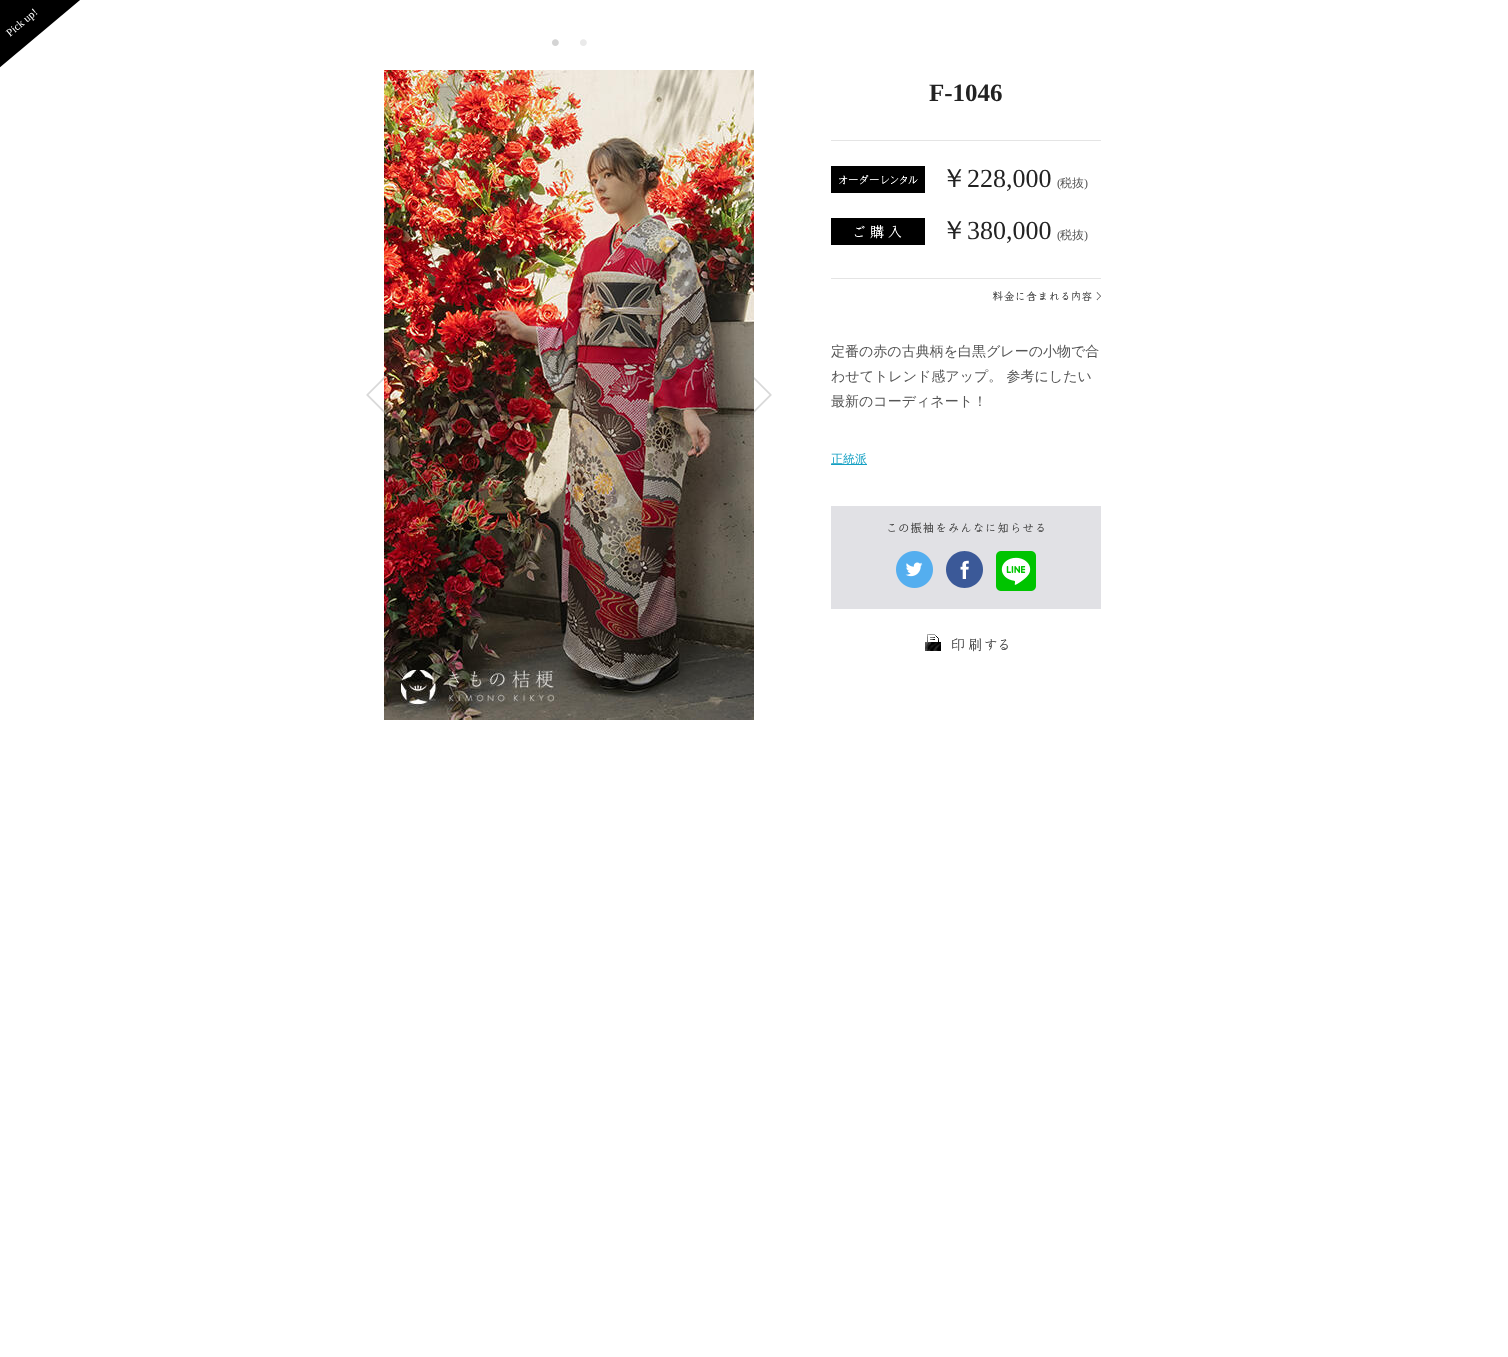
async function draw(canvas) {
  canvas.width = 1508
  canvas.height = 1357
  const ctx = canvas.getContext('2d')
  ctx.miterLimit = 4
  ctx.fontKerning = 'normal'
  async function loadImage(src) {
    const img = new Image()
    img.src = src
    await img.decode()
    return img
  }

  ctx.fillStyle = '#fff'
  ctx.fillRect(0, 0, 1508, 1357)
  ctx.fillStyle = '#000'
  ctx.beginPath()
  ctx.moveTo(-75, 59)
  ctx.lineTo(76, -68)
  ctx.lineTo(111, -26)
  ctx.lineTo(-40, 101)
  ctx.closePath()
  ctx.fill()
  ctx.font = '11px Liberation Serif'
  ctx.fillStyle = '#fff'
  ctx.save()
  ctx.translate(10, 37)
  ctx.rotate(-40 * Math.PI / 180)
  ctx.fillText('Pick up!', 0, 0)
  ctx.restore()
  ctx.font = '25px Liberation Sans'
  ctx.fillStyle = '#d4d4d4'
  ctx.fillText('•', 551, 51)
  ctx.fillStyle = '#eaeaea'
  ctx.fillText('•', 579, 51)
  ctx.drawImage(await loadImage('image1.png'), 384, 70, 370, 650)
  ctx.drawImage(await loadImage('image0.png'), 366, 371, 25, 48)
  ctx.drawImage(await loadImage('image2.png'), 748, 377, 24, 41)
  ctx.fillStyle = '#e4e4e4'
  ctx.fillRect(831, 140, 270, 1)
  ctx.font = 'bold 25px Liberation Serif'
  ctx.fillStyle = '#222'
  ctx.fillText('F-1046', 929, 101)
  ctx.fillStyle = '#e4e4e4'
  ctx.fillRect(831, 278, 270, 1)
  ctx.fillStyle = '#000'
  ctx.fillRect(831, 166, 94, 27)
  ctx.drawImage(await loadImage('image3.png'), 839, 175, 79, 10)
  ctx.font = '500 26px WenQuanYi Zen Hei'
  ctx.fillStyle = '#222'
  ctx.fillText('￥', 941, 187)
  ctx.font = '26px Liberation Serif'
  ctx.fillText('228,000', 967, 187)
  ctx.font = '12px Liberation Serif'
  ctx.fillStyle = '#555'
  ctx.fillText('(', 1057, 187)
  ctx.font = '500 12px WenQuanYi Zen Hei'
  ctx.fillText('税抜', 1060, 187)
  ctx.font = '12px Liberation Serif'
  ctx.fillText(')', 1084, 187)
  ctx.fillStyle = '#000'
  ctx.fillRect(831, 218, 94, 27)
  ctx.drawImage(await loadImage('image4.png'), 854, 225, 48, 14)
  ctx.font = '500 26px WenQuanYi Zen Hei'
  ctx.fillStyle = '#222'
  ctx.fillText('￥', 941, 239)
  ctx.font = '26px Liberation Serif'
  ctx.fillText('380,000', 967, 239)
  ctx.font = '12px Liberation Serif'
  ctx.fillStyle = '#555'
  ctx.fillText('(', 1057, 239)
  ctx.font = '500 12px WenQuanYi Zen Hei'
  ctx.fillText('税抜', 1060, 239)
  ctx.font = '12px Liberation Serif'
  ctx.fillText(')', 1084, 239)
  ctx.drawImage(await loadImage('image5.png'), 992, 291, 109, 10)
  ctx.font = '500 14px WenQuanYi Zen Hei'
  ctx.fillText('定番の赤の古典柄を白黒グレーの小物で合', 831, 356)
  ctx.fillText('わせてトレンド感アップ。 参考にしたい', 831, 381)
  ctx.fillText('最新のコーディネート！', 831, 406)
  ctx.fillStyle = '#15a0c3'
  ctx.fillRect(831, 464, 36, 1)
  ctx.font = '500 12px WenQuanYi Zen Hei'
  ctx.fillText('正統派', 831, 463)
  ctx.fillStyle = '#e1e1e5'
  ctx.fillRect(831, 506, 270, 103)
  ctx.drawImage(await loadImage('image6.png'), 888, 522, 156, 11)
  ctx.drawImage(await loadImage('image7.png'), 896, 551, 37, 37)
  ctx.drawImage(await loadImage('image8.png'), 946, 551, 37, 37)
  ctx.drawImage(await loadImage('image9.png'), 996, 551, 40, 40)
  ctx.drawImage(await loadImage('image10.png'), 925, 634, 83, 18)
}

draw(document.querySelector('canvas'))
